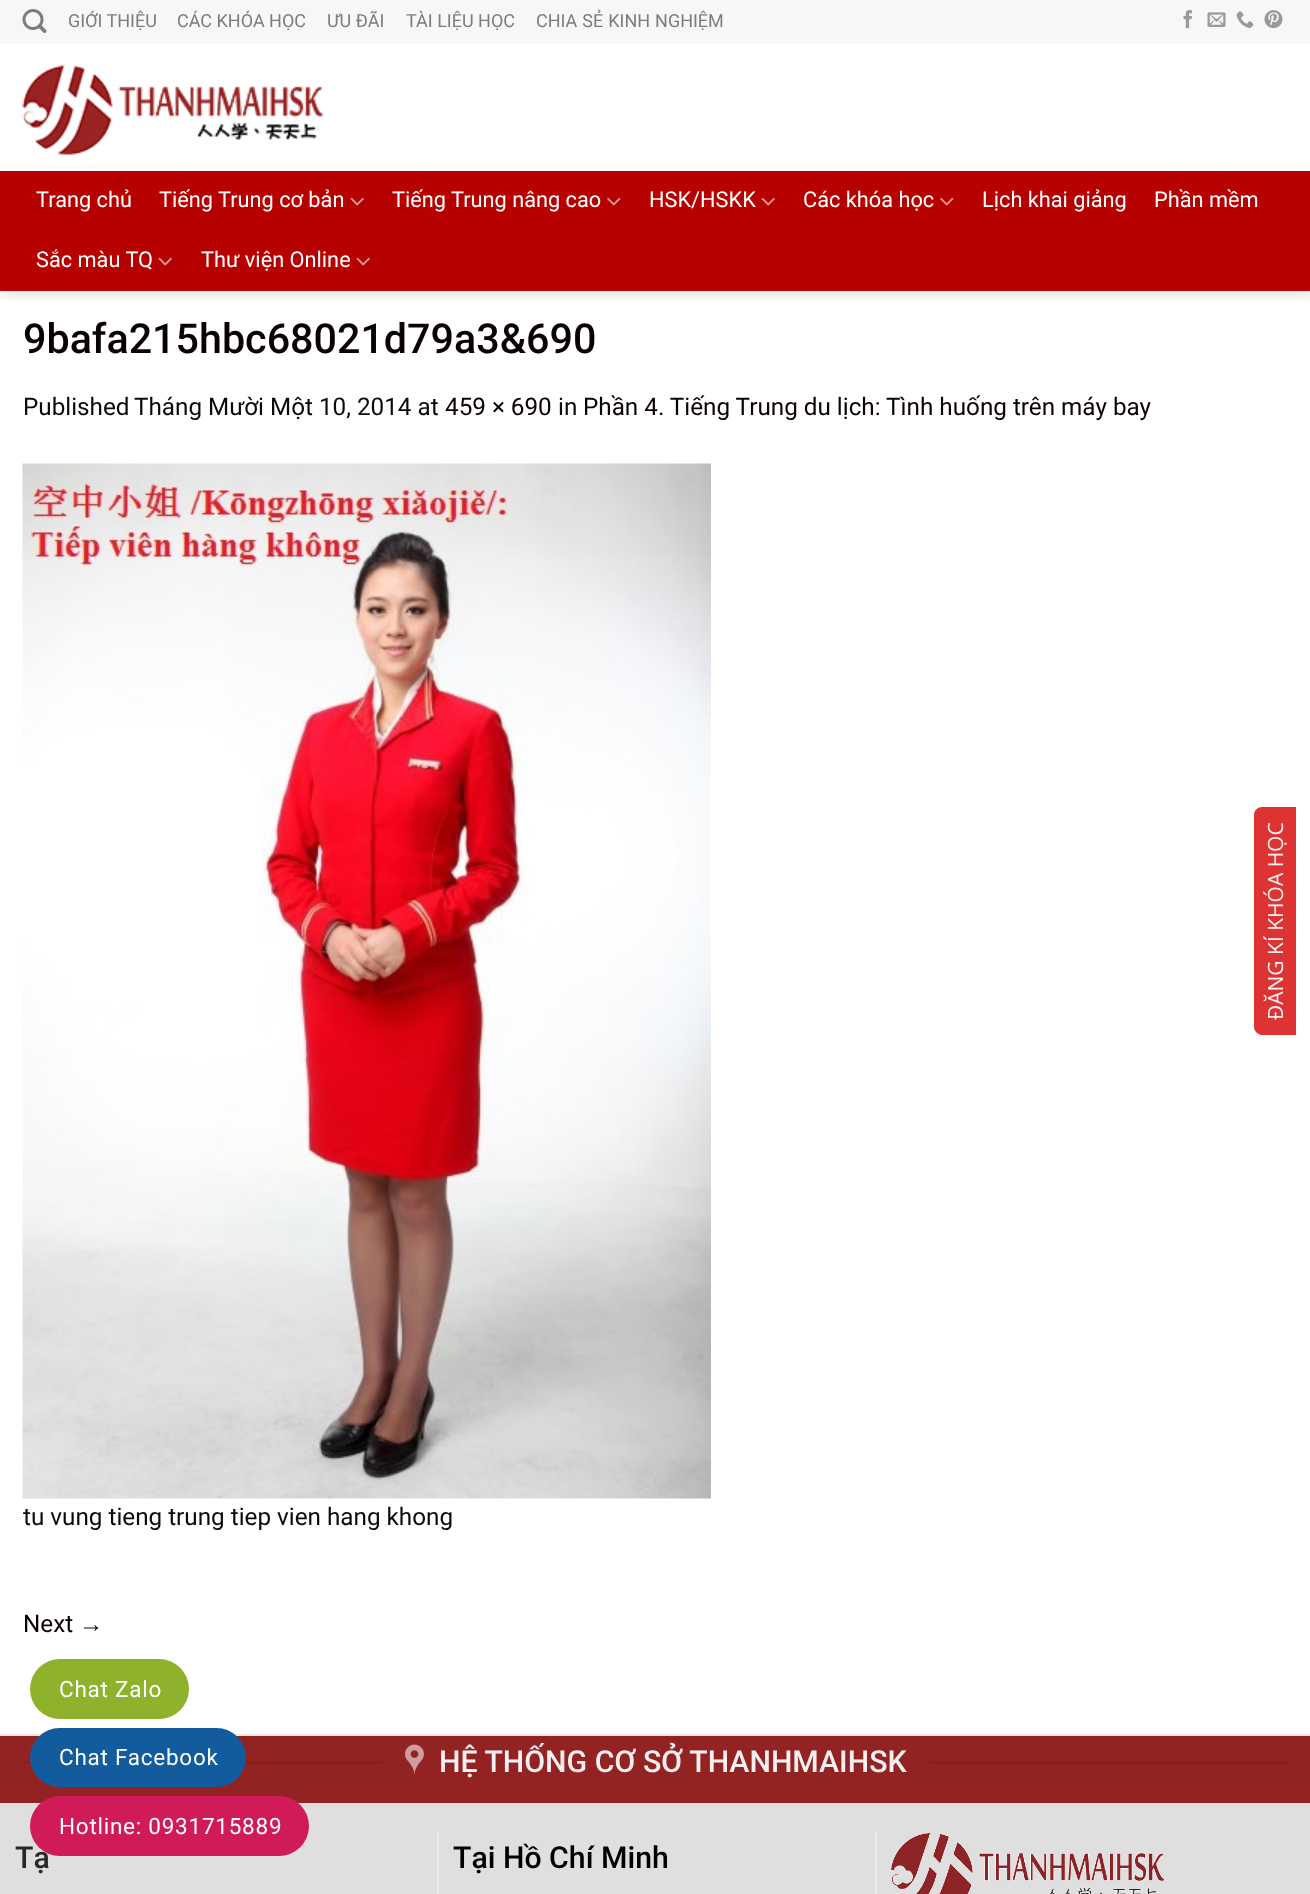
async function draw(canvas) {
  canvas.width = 1310
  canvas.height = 1894
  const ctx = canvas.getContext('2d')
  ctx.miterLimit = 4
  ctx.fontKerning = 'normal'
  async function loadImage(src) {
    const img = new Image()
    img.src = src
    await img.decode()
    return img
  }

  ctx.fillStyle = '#fff'
  ctx.fillRect(0, 0, 1310, 1894)
  ctx.save()
  ctx.beginPath()
  ctx.rect(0, 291, 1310, 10)
  ctx.clip()
  ctx.fillStyle = '#00000026'
  ctx.filter = 'blur(7.5px)'
  ctx.beginPath()
  ctx.rect(2, 2, 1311, 291)
  ctx.fill()
  ctx.filter = 'none'
  ctx.restore()
  ctx.fillStyle = '#f8f7f7'
  ctx.fillRect(0, 0, 1310, 44)
  ctx.drawImage(await loadImage('image0.png'), 22, 9, 25, 24)
  ctx.font = '18px Roboto'
  ctx.fillStyle = '#7c7c7c'
  ctx.fillText('GIỚI THIỆU', 68, 27)
  ctx.fillText('CÁC KHÓA HỌC', 177, 27)
  ctx.fillText('ƯU ĐÃI', 327, 27)
  ctx.fillText('TÀI LIỆU HỌC', 406, 27)
  ctx.wordSpacing = '0.5px'
  ctx.fillText('CHIA SẺ KINH NGHIỆM', 536, 27)
  ctx.drawImage(await loadImage('image1.png'), 1183, 10, 9, 19)
  ctx.drawImage(await loadImage('image2.png'), 1207, 12, 19, 15)
  ctx.drawImage(await loadImage('image3.png'), 1236, 11, 18, 18)
  ctx.drawImage(await loadImage('image4.png'), 1264, 10, 19, 19)
  ctx.drawImage(await loadImage('image5.png'), 22, 64, 301, 91)
  ctx.fillStyle = '#b70000'
  ctx.fillRect(0, 171, 1310, 120)
  ctx.wordSpacing = '0px'
  ctx.font = '21.75px Roboto'
  ctx.fillStyle = '#fff'
  ctx.fillText('Trang chủ', 36, 207)
  ctx.fillText('Tiếng Trung cơ bản', 159, 207)
  ctx.drawImage(await loadImage('image6.png'), 350, 197, 14, 9)
  ctx.fillText('Tiếng Trung nâng cao', 392, 207)
  ctx.drawImage(await loadImage('image7.png'), 607, 197, 14, 9)
  ctx.fillText('HSK/HSKK', 649, 207)
  ctx.drawImage(await loadImage('image6.png'), 761, 197, 14, 9)
  ctx.fillText('Các khóa học', 803, 207)
  ctx.drawImage(await loadImage('image7.png'), 940, 197, 14, 9)
  ctx.fillText('Lịch khai giảng', 982, 207)
  ctx.fillText('Phần mềm', 1154, 207)
  ctx.fillText('Sắc màu TQ', 36, 267)
  ctx.drawImage(await loadImage('image6.png'), 158, 257, 14, 9)
  ctx.fillText('Thư viện Online', 201, 267)
  ctx.drawImage(await loadImage('image6.png'), 356, 257, 14, 9)
  ctx.font = '500 41.25px Roboto'
  ctx.fillStyle = '#0a0103'
  ctx.fillText('9bafa215hbc68021d79a3&690', 23, 353)
  ctx.font = '24.25px Roboto'
  ctx.fillStyle = '#0a0a0a'
  ctx.fillText('Published', 23, 415)
  ctx.fillText('Tháng Mười Một 10, 2014 at', 134, 415)
  ctx.fillStyle = '#0a0103'
  ctx.fillText('459 × 690', 445, 415)
  ctx.fillStyle = '#0a0a0a'
  ctx.fillText('in', 558, 415)
  ctx.fillStyle = '#0a0103'
  ctx.fillText('Phần 4. Tiếng Trung du lịch: Tình huống trên máy bay', 583, 415)
  ctx.drawImage(await loadImage('image8.png'), 22, 463, 689, 1036)
  ctx.fillStyle = '#0a0a0a'
  ctx.fillText('tu vung tieng trung tiep vien hang khong', 23, 1525)
  ctx.fillStyle = '#0a0103'
  ctx.fillText('Next', 23, 1632)
  ctx.font = '24.25px Liberation Sans'
  ctx.fillText('→', 79, 1632)
  ctx.fillStyle = '#e6e6e6'
  ctx.fillRect(0, 1734, 1310, 2)
  ctx.fillStyle = '#932323'
  ctx.fillRect(0, 1736, 1310, 67)
  ctx.fillStyle = '#852020'
  ctx.fillRect(23, 1761, 360, 3)
  ctx.drawImage(await loadImage('image9.png'), 405, 1744, 19, 31)
  ctx.font = '500 30.25px Roboto'
  ctx.fillStyle = '#f6efef'
  ctx.fillText('HỆ THỐNG CƠ SỞ THANHMAIHSK', 439, 1772)
  ctx.fillStyle = '#852020'
  ctx.fillRect(929, 1761, 360, 3)
  ctx.fillStyle = '#dfdfdf'
  ctx.fillRect(0, 1803, 1310, 91)
  ctx.fillStyle = '#282828'
  ctx.fillText('Tạ', 15, 1868)
  ctx.fillStyle = '#ececec'
  ctx.fillRect(437, 1833, 2, 61)
  ctx.fillStyle = '#000'
  ctx.fillText('Tại Hồ Chí Minh', 453, 1868)
  ctx.fillStyle = '#ececec'
  ctx.fillRect(875, 1833, 2, 61)
  ctx.drawImage(await loadImage('image10.png'), 891, 1833, 273, 61)
  ctx.fillStyle = '#d33'
  ctx.beginPath()
  ctx.moveTo(1254, 1027)
  ctx.lineTo(1254, 815)
  ctx.bezierCurveTo(1254, 810, 1258, 807, 1262, 807)
  ctx.lineTo(1296, 807)
  ctx.lineTo(1296, 1035)
  ctx.lineTo(1262, 1035)
  ctx.bezierCurveTo(1258, 1035, 1254, 1031, 1254, 1027)
  ctx.closePath()
  ctx.fill()
  ctx.font = '21px Open Sans'
  ctx.fillStyle = '#f6efef'
  ctx.save()
  ctx.translate(1283, 1020)
  ctx.rotate(-90 * Math.PI / 180)
  ctx.fillText('ĐĂNG KÍ KHÓA HỌC', 0, 0)
  ctx.restore()
  ctx.fillStyle = '#8eb22b'
  ctx.beginPath()
  ctx.roundRect(30, 1659, 159, 60, 30)
  ctx.fill()
  ctx.letterSpacing = '0.75px'
  ctx.font = '22.5px Roboto'
  ctx.fillStyle = '#fff'
  ctx.fillText('Chat Zalo', 59, 1697)
  ctx.fillStyle = '#125c9e'
  ctx.beginPath()
  ctx.roundRect(30, 1728, 216, 59, 29.5)
  ctx.fill()
  ctx.fillStyle = '#fff'
  ctx.fillText('Chat Facebook', 59, 1765)
  ctx.fillStyle = '#d11a59'
  ctx.beginPath()
  ctx.roundRect(30, 1796, 279, 60, 30)
  ctx.fill()
  ctx.fillStyle = '#fff'
  ctx.fillText('Hotline: 0931715889', 59, 1834)
}

draw(document.querySelector('canvas'))
